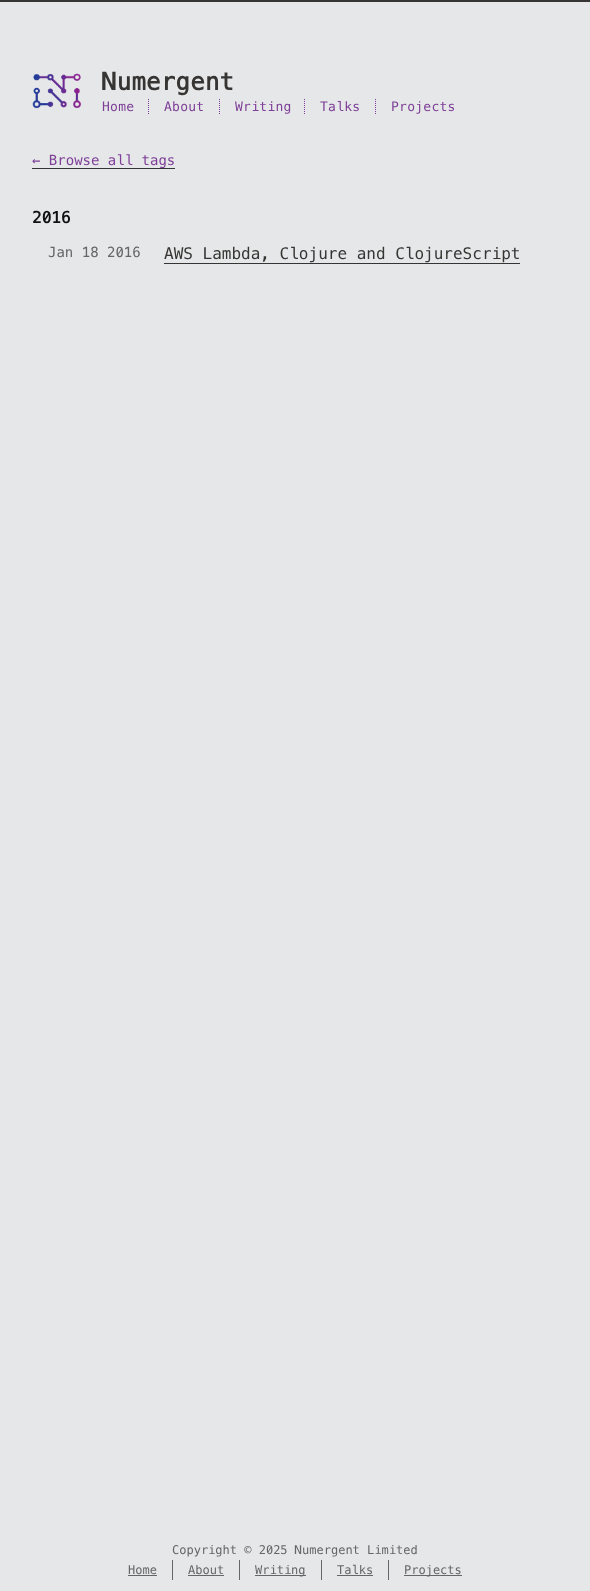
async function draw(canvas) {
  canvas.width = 590
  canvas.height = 1591
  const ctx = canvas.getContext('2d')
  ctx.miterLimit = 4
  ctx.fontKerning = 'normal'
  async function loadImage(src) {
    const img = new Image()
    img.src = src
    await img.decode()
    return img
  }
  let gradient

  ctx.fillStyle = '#e6e7e8'
  ctx.fillRect(0, 0, 590, 1591)
  ctx.fillStyle = '#363533'
  ctx.fillRect(0, 0, 590, 2)
  ctx.drawImage(await loadImage('image0.png'), 32, 73, 50, 36)
  ctx.letterSpacing = '0.25px'
  ctx.font = 'bold 24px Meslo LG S'
  ctx.fillText('Numergent', 102, 90)
  ctx.beginPath()
  ctx.moveTo(148.5, 99)
  ctx.lineTo(148.5, 114)
  ctx.strokeStyle = '#7e3f98'
  ctx.setLineDash([1, 1])
  ctx.stroke()
  ctx.font = '13px Meslo LG S'
  ctx.fillStyle = '#7e3f98'
  ctx.fillText('Home', 102, 111)
  ctx.beginPath()
  ctx.moveTo(219.5, 99)
  ctx.lineTo(219.5, 114)
  ctx.stroke()
  ctx.fillText('About', 164, 111)
  ctx.beginPath()
  ctx.moveTo(304.5, 99)
  ctx.lineTo(304.5, 114)
  ctx.stroke()
  ctx.fillText('Writing', 235, 111)
  ctx.beginPath()
  ctx.moveTo(375.5, 99)
  ctx.lineTo(375.5, 114)
  ctx.stroke()
  ctx.fillText('Talks', 320, 111)
  ctx.fillText('Projects', 391, 111)
  ctx.letterSpacing = '0px'
  ctx.font = '14px Meslo LG S'
  ctx.fillText('← Browse all tags', 32, 165)
  gradient = ctx.createLinearGradient(104, 163, 104, 169)
  gradient.addColorStop(0, '#e6e7e8')
  gradient.addColorStop(0.83, '#e6e7e8')
  gradient.addColorStop(0.83, '#363533')
  gradient.addColorStop(1, '#363533')
  ctx.fillStyle = gradient
  ctx.fillRect(32, 168, 143, 1)
  ctx.font = 'bold 16px Meslo LG S'
  ctx.fillStyle = '#111'
  ctx.fillText('2016', 32, 223)
  ctx.font = '14px Meslo LG S'
  ctx.fillStyle = '#666'
  ctx.fillText('Jan 18 2016', 48, 257)
  ctx.font = '16px Meslo LG S'
  ctx.fillStyle = '#363533'
  ctx.fillText('AWS Lambda, Clojure and ClojureScript', 164, 259)
  gradient = ctx.createLinearGradient(342, 258, 342, 264)
  gradient.addColorStop(0, '#e6e7e8')
  gradient.addColorStop(0.83, '#e6e7e8')
  gradient.addColorStop(0.83, '#363533')
  gradient.addColorStop(1, '#363533')
  ctx.fillStyle = gradient
  ctx.fillRect(164, 263, 356, 1)
  ctx.font = '12px Meslo LG S'
  ctx.fillStyle = '#666'
  ctx.fillText('Copyright © 2025 Numergent Limited', 172, 1554)
  ctx.fillRect(172, 1560, 1, 20)
  ctx.fillText('Home', 128, 1574)
  ctx.fillRect(128, 1575, 29, 1)
  ctx.fillRect(239, 1560, 1, 20)
  ctx.fillText('About', 188, 1574)
  ctx.fillRect(188, 1575, 36, 1)
  ctx.fillRect(321, 1560, 1, 20)
  ctx.fillRect(255, 1575, 51, 1)
  ctx.fillText('Writing', 255, 1574)
  ctx.fillRect(388, 1560, 1, 20)
  ctx.fillText('Talks', 337, 1574)
  ctx.fillRect(337, 1575, 36, 1)
  ctx.fillRect(404, 1575, 58, 1)
  ctx.fillText('Projects', 404, 1574)
}

draw(document.querySelector('canvas'))
